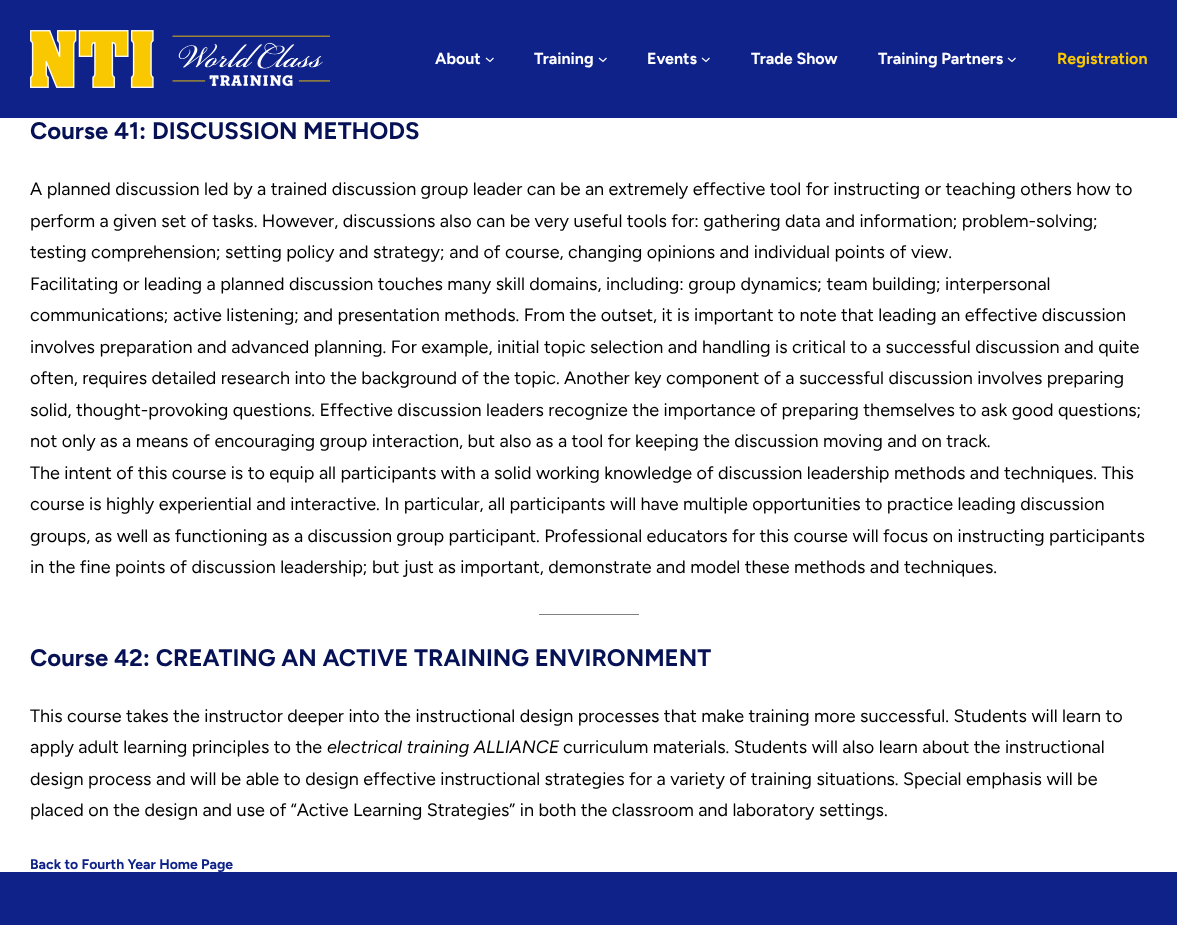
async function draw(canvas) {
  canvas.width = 1177
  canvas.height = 925
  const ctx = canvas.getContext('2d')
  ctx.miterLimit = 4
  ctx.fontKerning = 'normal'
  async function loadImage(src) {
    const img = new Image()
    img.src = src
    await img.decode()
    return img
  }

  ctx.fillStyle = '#fff'
  ctx.fillRect(0, 0, 1177, 925)
  ctx.fillStyle = '#0f2289'
  ctx.fillRect(0, 0, 1177, 118)
  ctx.drawImage(await loadImage('image0.png'), 30, 30, 300, 58)
  ctx.font = 'bold 16px Figtree'
  ctx.fillStyle = '#fff'
  ctx.fillText('About', 435, 64)
  ctx.beginPath()
  ctx.moveTo(486, 58)
  ctx.lineTo(490, 61.5)
  ctx.lineTo(493.5, 58)
  ctx.strokeStyle = '#fff'
  ctx.lineWidth = 1.2
  ctx.stroke()
  ctx.fillText('Training', 534, 64)
  ctx.beginPath()
  ctx.moveTo(599, 58)
  ctx.lineTo(603, 61.5)
  ctx.lineTo(606.5, 58)
  ctx.stroke()
  ctx.fillText('Events', 647, 64)
  ctx.beginPath()
  ctx.moveTo(702, 58)
  ctx.lineTo(706, 61.5)
  ctx.lineTo(709.5, 58)
  ctx.stroke()
  ctx.fillText('Trade Show', 751, 64)
  ctx.fillText('Training Partners', 878, 64)
  ctx.beginPath()
  ctx.moveTo(1008, 58)
  ctx.lineTo(1012, 61.5)
  ctx.lineTo(1015.5, 58)
  ctx.stroke()
  ctx.fillStyle = '#fac801'
  ctx.fillText('Registration', 1057, 64)
  ctx.font = 'bold 23.9px Figtree'
  ctx.fillStyle = '#061255'
  ctx.fillText('Course 41: DISCUSSION METHODS', 30, 139)
  ctx.font = '18px Figtree'
  ctx.fillStyle = '#000'
  ctx.fillText('A planned discussion led by a trained discussion group leader can be an extremely effective tool for instructing or teaching others how to', 30, 195)
  ctx.fillText('perform a given set of tasks. However, discussions also can be very useful tools for: gathering data and information; problem-solving;', 30, 227)
  ctx.fillText('testing comprehension; setting policy and strategy; and of course, changing opinions and individual points of view.', 30, 258)
  ctx.fillText('Facilitating or leading a planned discussion touches many skill domains, including: group dynamics; team building; interpersonal', 30, 290)
  ctx.fillText('communications; active listening; and presentation methods. From the outset, it is important to note that leading an effective discussion', 30, 321)
  ctx.fillText('involves preparation and advanced planning. For example, initial topic selection and handling is critical to a successful discussion and quite', 30, 353)
  ctx.fillText('often, requires detailed research into the background of the topic. Another key component of a successful discussion involves preparing', 30, 384)
  ctx.fillText('solid, thought-provoking questions. Effective discussion leaders recognize the importance of preparing themselves to ask good questions;', 30, 416)
  ctx.fillText('not only as a means of encouraging group interaction, but also as a tool for keeping the discussion moving and on track.', 30, 447)
  ctx.fillText('The intent of this course is to equip all participants with a solid working knowledge of discussion leadership methods and techniques. This', 30, 479)
  ctx.fillText('course is highly experiential and interactive. In particular, all participants will have multiple opportunities to practice leading discussion', 30, 510)
  ctx.fillText('groups, as well as functioning as a discussion group participant. Professional educators for this course will focus on instructing participants', 30, 542)
  ctx.fillText('in the fine points of discussion leadership; but just as important, demonstrate and model these methods and techniques.', 30, 573)
  ctx.fillStyle = '#808080'
  ctx.fillRect(539, 614, 100, 1)
  ctx.font = 'bold 23.9px Figtree'
  ctx.fillStyle = '#061255'
  ctx.fillText('Course 42: CREATING AN ACTIVE TRAINING ENVIRONMENT', 30, 666)
  ctx.font = '18px Figtree'
  ctx.fillStyle = '#000'
  ctx.fillText('This course takes the instructor deeper into the instructional design processes that make training more successful. Students will learn to', 30, 722)
  ctx.fillText('apply adult learning principles to the', 30, 753)
  ctx.font = 'italic 18px Figtree'
  ctx.fillText('electrical training ALLIANCE', 327, 753)
  ctx.font = '18px Figtree'
  ctx.fillText('curriculum materials. Students will also learn about the instructional', 563, 753)
  ctx.fillText('design process and will be able to design effective instructional strategies for a variety of training situations. Special emphasis will be', 30, 785)
  ctx.fillText('placed on the design and use of “Active Learning Strategies” in both the classroom and laboratory settings.', 30, 816)
  ctx.font = 'bold 14px Figtree'
  ctx.fillStyle = '#0f2289'
  ctx.fillText('Back to Fourth Year Home Page', 30, 869)
  ctx.fillRect(0, 872, 1177, 53)
}

draw(document.querySelector('canvas'))
